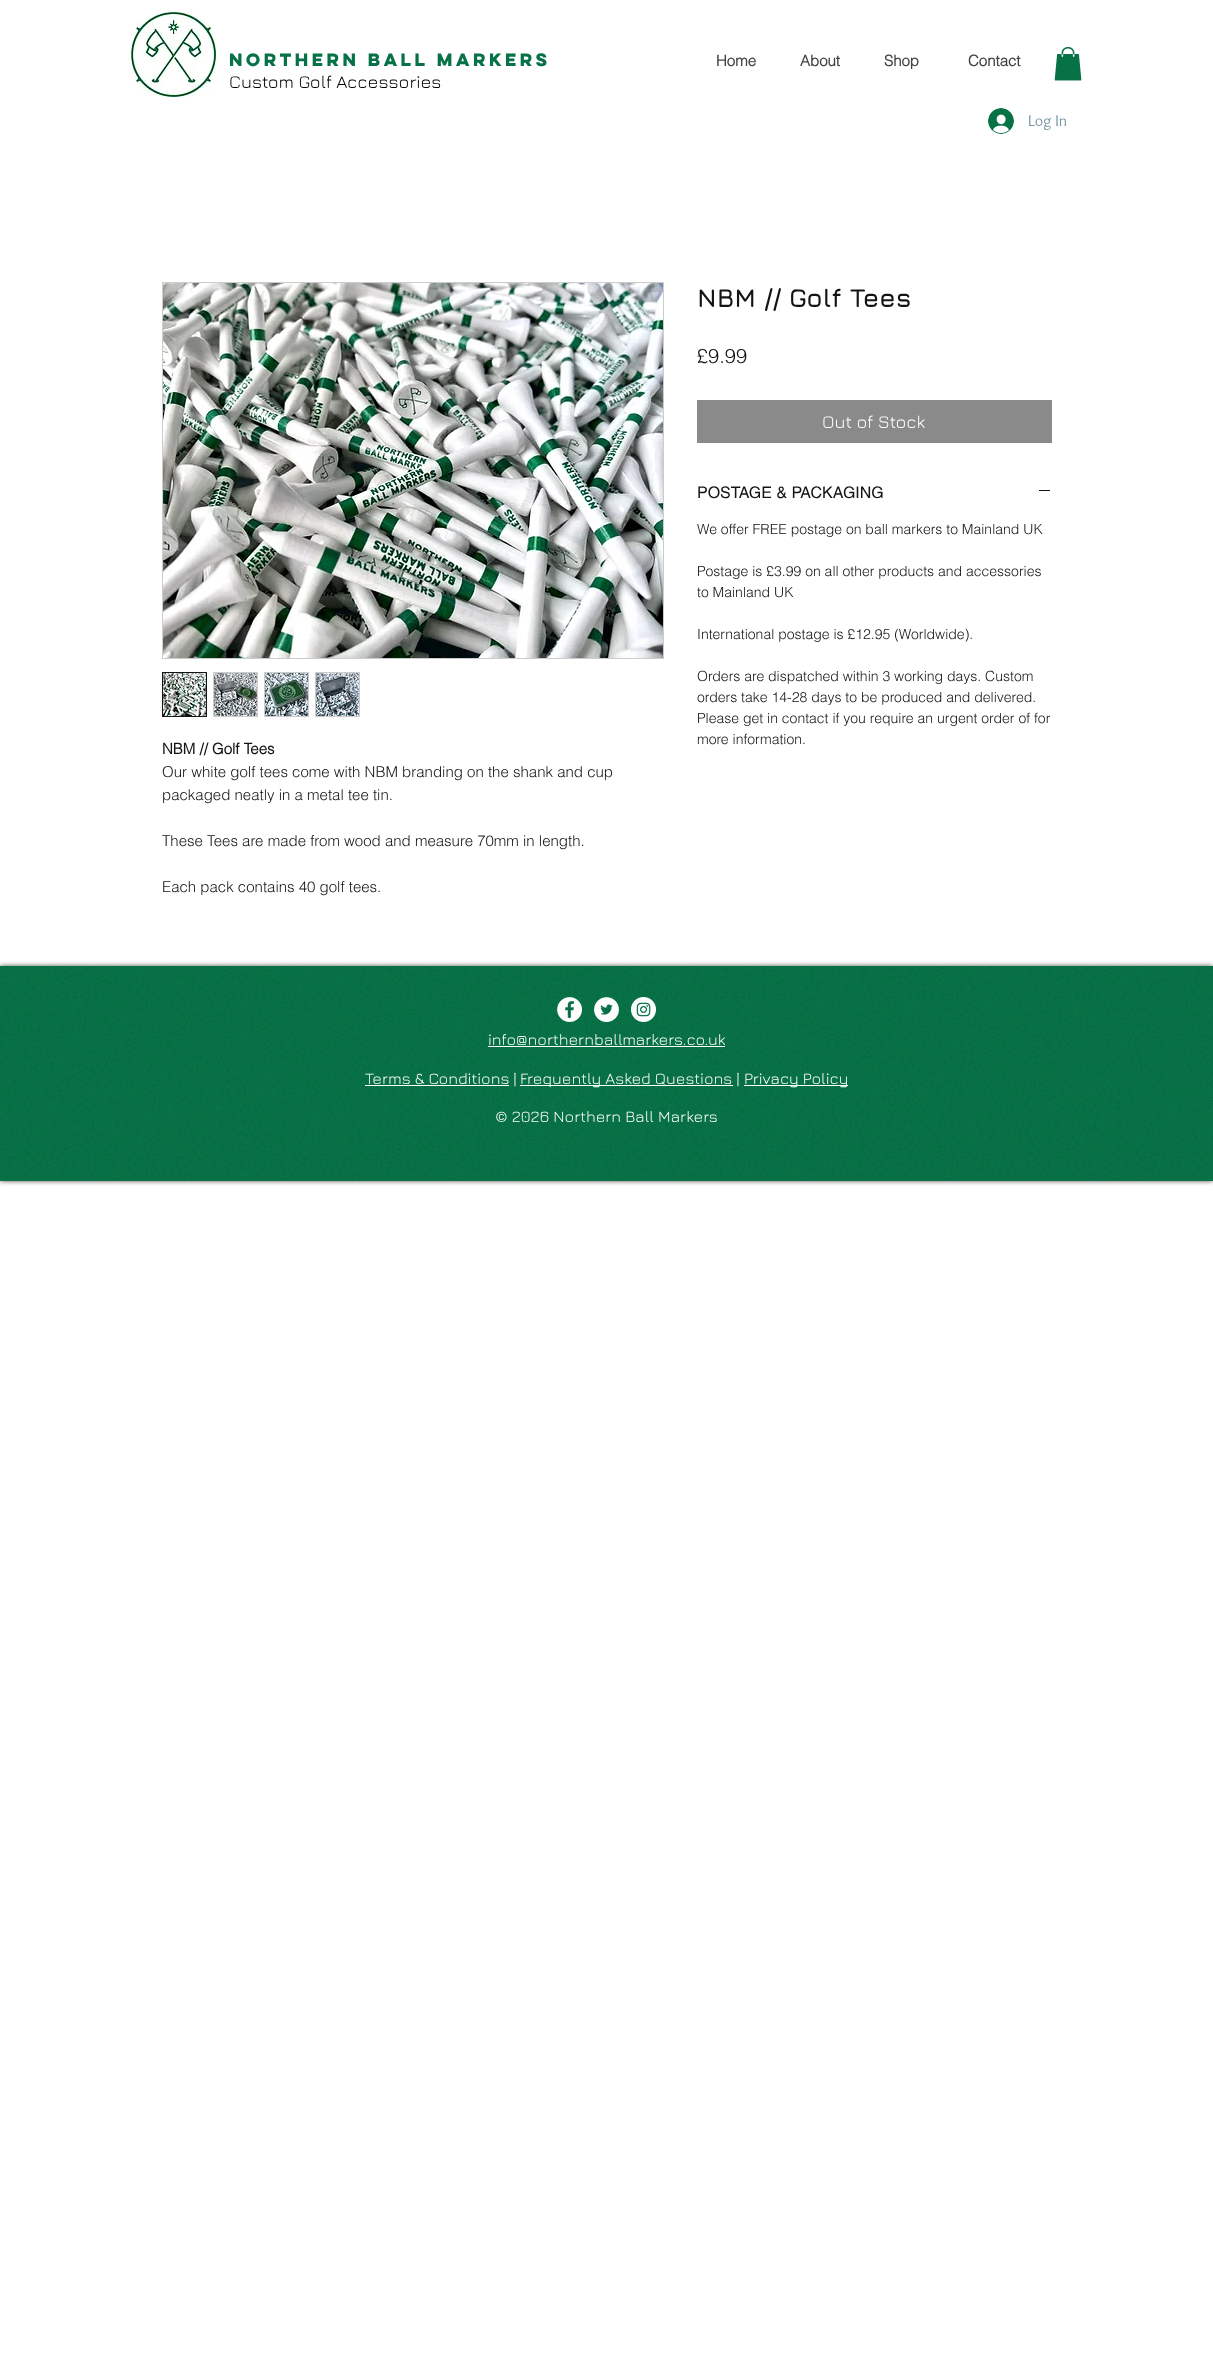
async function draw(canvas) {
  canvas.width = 1213
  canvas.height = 2357
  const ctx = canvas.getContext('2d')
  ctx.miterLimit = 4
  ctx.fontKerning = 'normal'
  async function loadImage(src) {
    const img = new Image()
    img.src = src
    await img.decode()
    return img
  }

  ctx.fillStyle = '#fff'
  ctx.fillRect(0, 0, 1213, 2357)
  ctx.drawImage(await loadImage('image0.png'), 131, 12, 85, 85)
  ctx.font = 'bold 16px "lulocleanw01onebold"'
  ctx.fillStyle = '#067246'
  ctx.fillText('Northern Ball Markers', 229, 66)
  ctx.font = '18px Jura'
  ctx.fillStyle = '#000'
  ctx.fillText('Custom Golf Accessories', 229, 88)
  ctx.font = 'bold 15px helvetica'
  ctx.fillStyle = '#444'
  ctx.fillText('Home', 716, 66)
  ctx.fillText('About', 800, 66)
  ctx.fillText('Shop', 884, 66)
  ctx.fillText('Contact', 968, 66)
  ctx.drawImage(await loadImage('image1.png'), 1054, 47, 28, 34)
  ctx.drawImage(await loadImage('image2.png'), 988, 108, 26, 26)
  ctx.font = '16px Overlock'
  ctx.fillStyle = '#7795a3'
  ctx.fillText('Log In', 1028, 126)
  ctx.font = 'bold 26px Jura'
  ctx.fillStyle = '#141414'
  ctx.fillText('NBM // Golf Tees', 697, 307)
  ctx.font = '300 20px helvetica'
  ctx.fillText('£9.99', 697, 363)
  ctx.fillStyle = '#8b8a8a'
  ctx.fillRect(697, 400, 355, 43)
  ctx.font = '18px Jura'
  ctx.fillStyle = '#fff'
  ctx.fillText('Out of Stock', 822, 428)
  ctx.font = '16px helvetica'
  ctx.fillStyle = '#141414'
  ctx.fillText('POSTAGE & PACKAGING', 697, 498)
  ctx.fillRect(1039, 490, 11, 1)
  ctx.font = '300 14px helvetica'
  ctx.fillText('We offer FREE postage on ball markers to Mainland UK', 697, 534)
  ctx.fillText('Postage is £3.99 on all other products and accessories', 697, 576)
  ctx.fillText('to Mainland UK', 697, 597)
  ctx.fillText('International postage is £12.95 (Worldwide).', 697, 639)
  ctx.fillText('Orders are dispatched within 3 working days. Custom', 697, 681)
  ctx.fillText('orders take 14-28 days to be produced and delivered.', 697, 702)
  ctx.fillText('Please get in contact if you require an urgent order of for', 697, 723)
  ctx.fillText('more information.', 697, 744)
  ctx.strokeStyle = '#ccc'
  ctx.strokeRect(162.5, 282.5, 501, 376)
  ctx.drawImage(await loadImage('image3.png'), 163, 283, 500, 375)
  ctx.strokeStyle = '#141414'
  ctx.strokeRect(162.5, 672.5, 44, 44)
  ctx.drawImage(await loadImage('image4.png'), 163, 673, 43, 43)
  ctx.fillStyle = '#ccc'
  ctx.fillRect(213, 672, 45, 45)
  ctx.drawImage(await loadImage('image5.png'), 214, 673, 43, 43)
  ctx.fillRect(264, 672, 45, 45)
  ctx.drawImage(await loadImage('image6.png'), 265, 673, 43, 43)
  ctx.fillRect(315, 672, 45, 45)
  ctx.drawImage(await loadImage('image7.png'), 316, 673, 43, 43)
  ctx.font = 'bold 15px helvetica'
  ctx.fillStyle = '#141414'
  ctx.fillText('NBM // Golf Tees', 162, 754)
  ctx.font = '300 15px helvetica'
  ctx.fillText('Our white golf tees come with NBM branding on the shank and cup', 162, 777)
  ctx.fillText('packaged neatly in a metal tee tin.', 162, 800)
  ctx.fillText('These Tees are made from wood and measure 70mm in length.', 162, 846)
  ctx.fillText('Each pack contains 40 golf tees.', 162, 892)
  ctx.fillStyle = '#000000b3'
  ctx.filter = 'blur(2.5px)'
  ctx.beginPath()
  ctx.rect(0, 966, 1213, 215)
  ctx.fill()
  ctx.filter = 'none'
  ctx.fillStyle = '#067246'
  ctx.fillRect(0, 966, 1213, 215)
  ctx.drawImage(await loadImage('image8.png'), 0, 966, 1213, 215)
  ctx.drawImage(await loadImage('image9.png'), 557, 997, 25, 25)
  ctx.drawImage(await loadImage('image10.png'), 594, 997, 25, 25)
  ctx.drawImage(await loadImage('image11.png'), 631, 997, 25, 25)
  ctx.font = '16px Jura'
  ctx.fillStyle = '#fff'
  ctx.fillText('info@northernballmarkers.co.uk', 488, 1045)
  ctx.fillRect(488, 1046, 237, 1)
  ctx.fillRect(365, 1085, 144, 1)
  ctx.fillText('Terms & Conditions |', 365, 1084)
  ctx.fillRect(520, 1085, 213, 1)
  ctx.fillText('Frequently Asked Questions |', 520, 1084)
  ctx.fillRect(744, 1085, 104, 1)
  ctx.fillText('Privacy Policy', 744, 1084)
  ctx.fillText('© 2026 Northern Ball Markers', 495, 1122)
}

draw(document.querySelector('canvas'))
